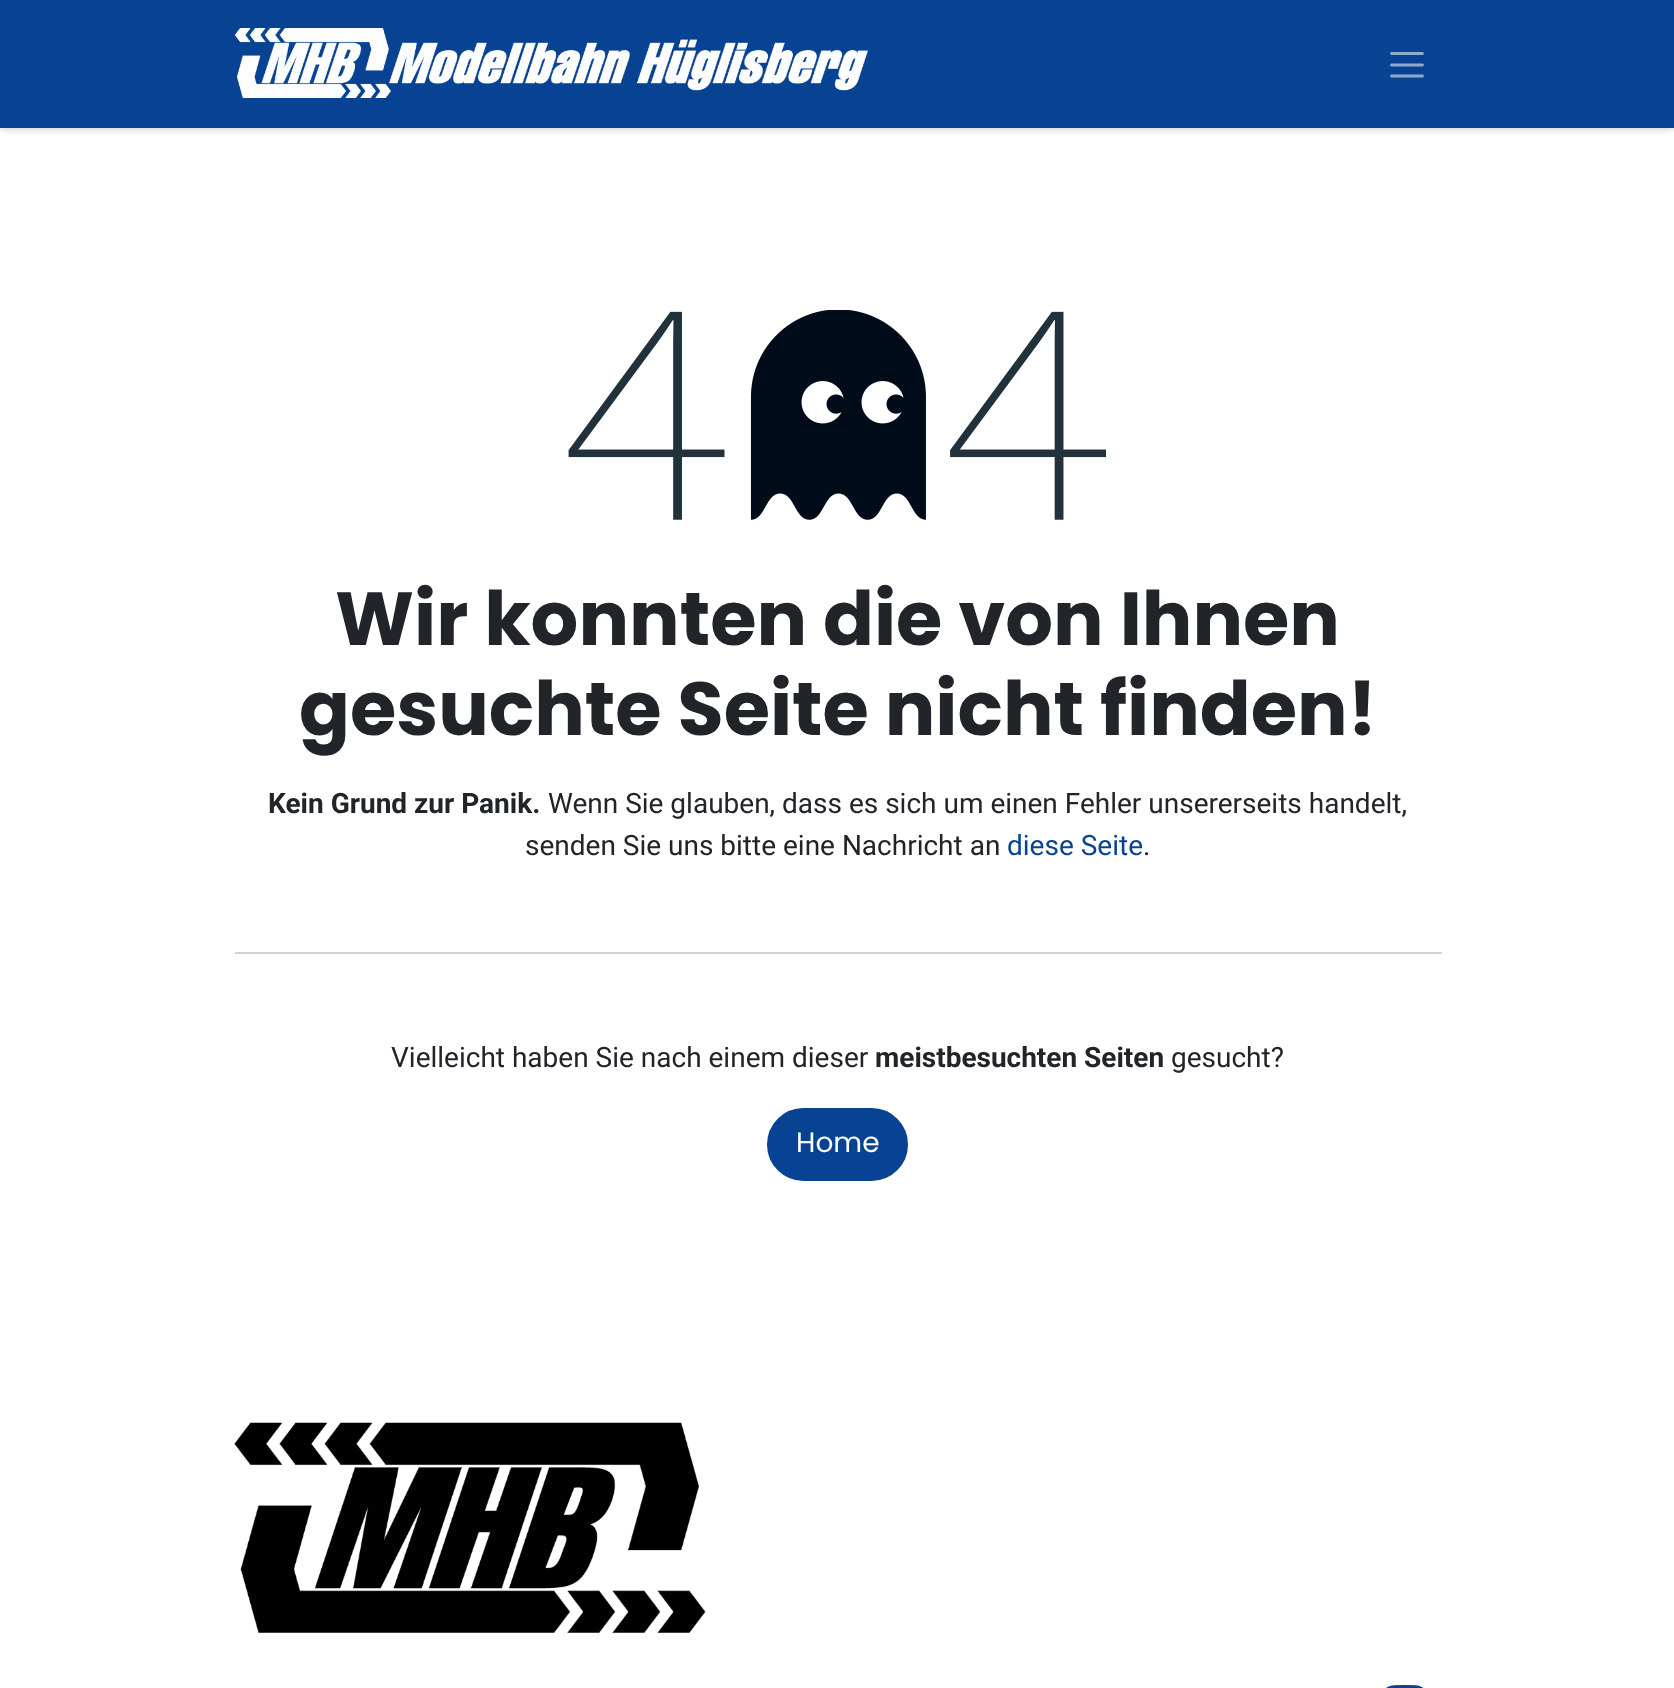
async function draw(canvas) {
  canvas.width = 1674
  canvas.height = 1688
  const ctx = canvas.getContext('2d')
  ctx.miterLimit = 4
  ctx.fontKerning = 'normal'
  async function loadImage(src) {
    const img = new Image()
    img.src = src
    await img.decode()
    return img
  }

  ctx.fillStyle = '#fff'
  ctx.fillRect(0, 0, 1674, 1688)
  ctx.fillStyle = '#00000040'
  ctx.filter = 'blur(4.5px)'
  ctx.beginPath()
  ctx.rect(0, 0, 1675, 128)
  ctx.fill()
  ctx.filter = 'none'
  ctx.fillStyle = '#084393'
  ctx.fillRect(0, 0, 1674, 128)
  ctx.drawImage(await loadImage('image0.png'), 234, 28, 634, 70)
  ctx.beginPath()
  ctx.moveTo(1391.5, 53.5)
  ctx.lineTo(1422.5, 53.5)
  ctx.moveTo(1391.5, 65)
  ctx.lineTo(1422.5, 65)
  ctx.moveTo(1391.5, 76)
  ctx.lineTo(1422.5, 76)
  ctx.strokeStyle = '#90aace'
  ctx.lineWidth = 2.8
  ctx.lineCap = 'round'
  ctx.stroke()
  ctx.drawImage(await loadImage('image1.png'), 568, 310, 538, 210)
  ctx.font = 'bold 75.1px Poppins'
  ctx.fillStyle = '#212529'
  ctx.fillText('Wir konnten die von Ihnen', 335, 645)
  ctx.fillText('gesuchte Seite nicht finden!', 299, 735)
  ctx.font = 'bold 28px Roboto'
  ctx.fillText('Kein Grund zur Panik.', 268, 813)
  ctx.font = '28px Roboto'
  ctx.fillText('Wenn Sie glauben, dass es sich um einen Fehler unsererseits handelt,', 548, 813)
  ctx.fillText('senden Sie uns bitte eine Nachricht an', 525, 855)
  ctx.fillStyle = '#084393'
  ctx.fillText('diese Seite', 1007, 855)
  ctx.fillStyle = '#212529'
  ctx.fillText('.', 1143, 855)
  ctx.fillStyle = '#ced4da'
  ctx.fillRect(235, 952, 1207, 2)
  ctx.fillStyle = '#212529'
  ctx.fillText('Vielleicht haben Sie nach einem dieser', 391, 1067)
  ctx.font = 'bold 28px Roboto'
  ctx.fillText('meistbesuchten Seiten', 875, 1067)
  ctx.font = '28px Roboto'
  ctx.fillText('gesucht?', 1171, 1067)
  ctx.fillStyle = '#084393'
  ctx.beginPath()
  ctx.roundRect(768, 1109, 139, 71, 35.5)
  ctx.fill()
  ctx.strokeStyle = '#084393'
  ctx.lineWidth = 2
  ctx.stroke()
  ctx.font = '28px Poppins'
  ctx.fillStyle = '#fff'
  ctx.fillText('Home', 796, 1152)
  ctx.drawImage(await loadImage('image2.png'), 234, 1422, 472, 211)
  ctx.drawImage(await loadImage('image3.png'), 1386, 1685, 38, 3)
}

draw(document.querySelector('canvas'))
